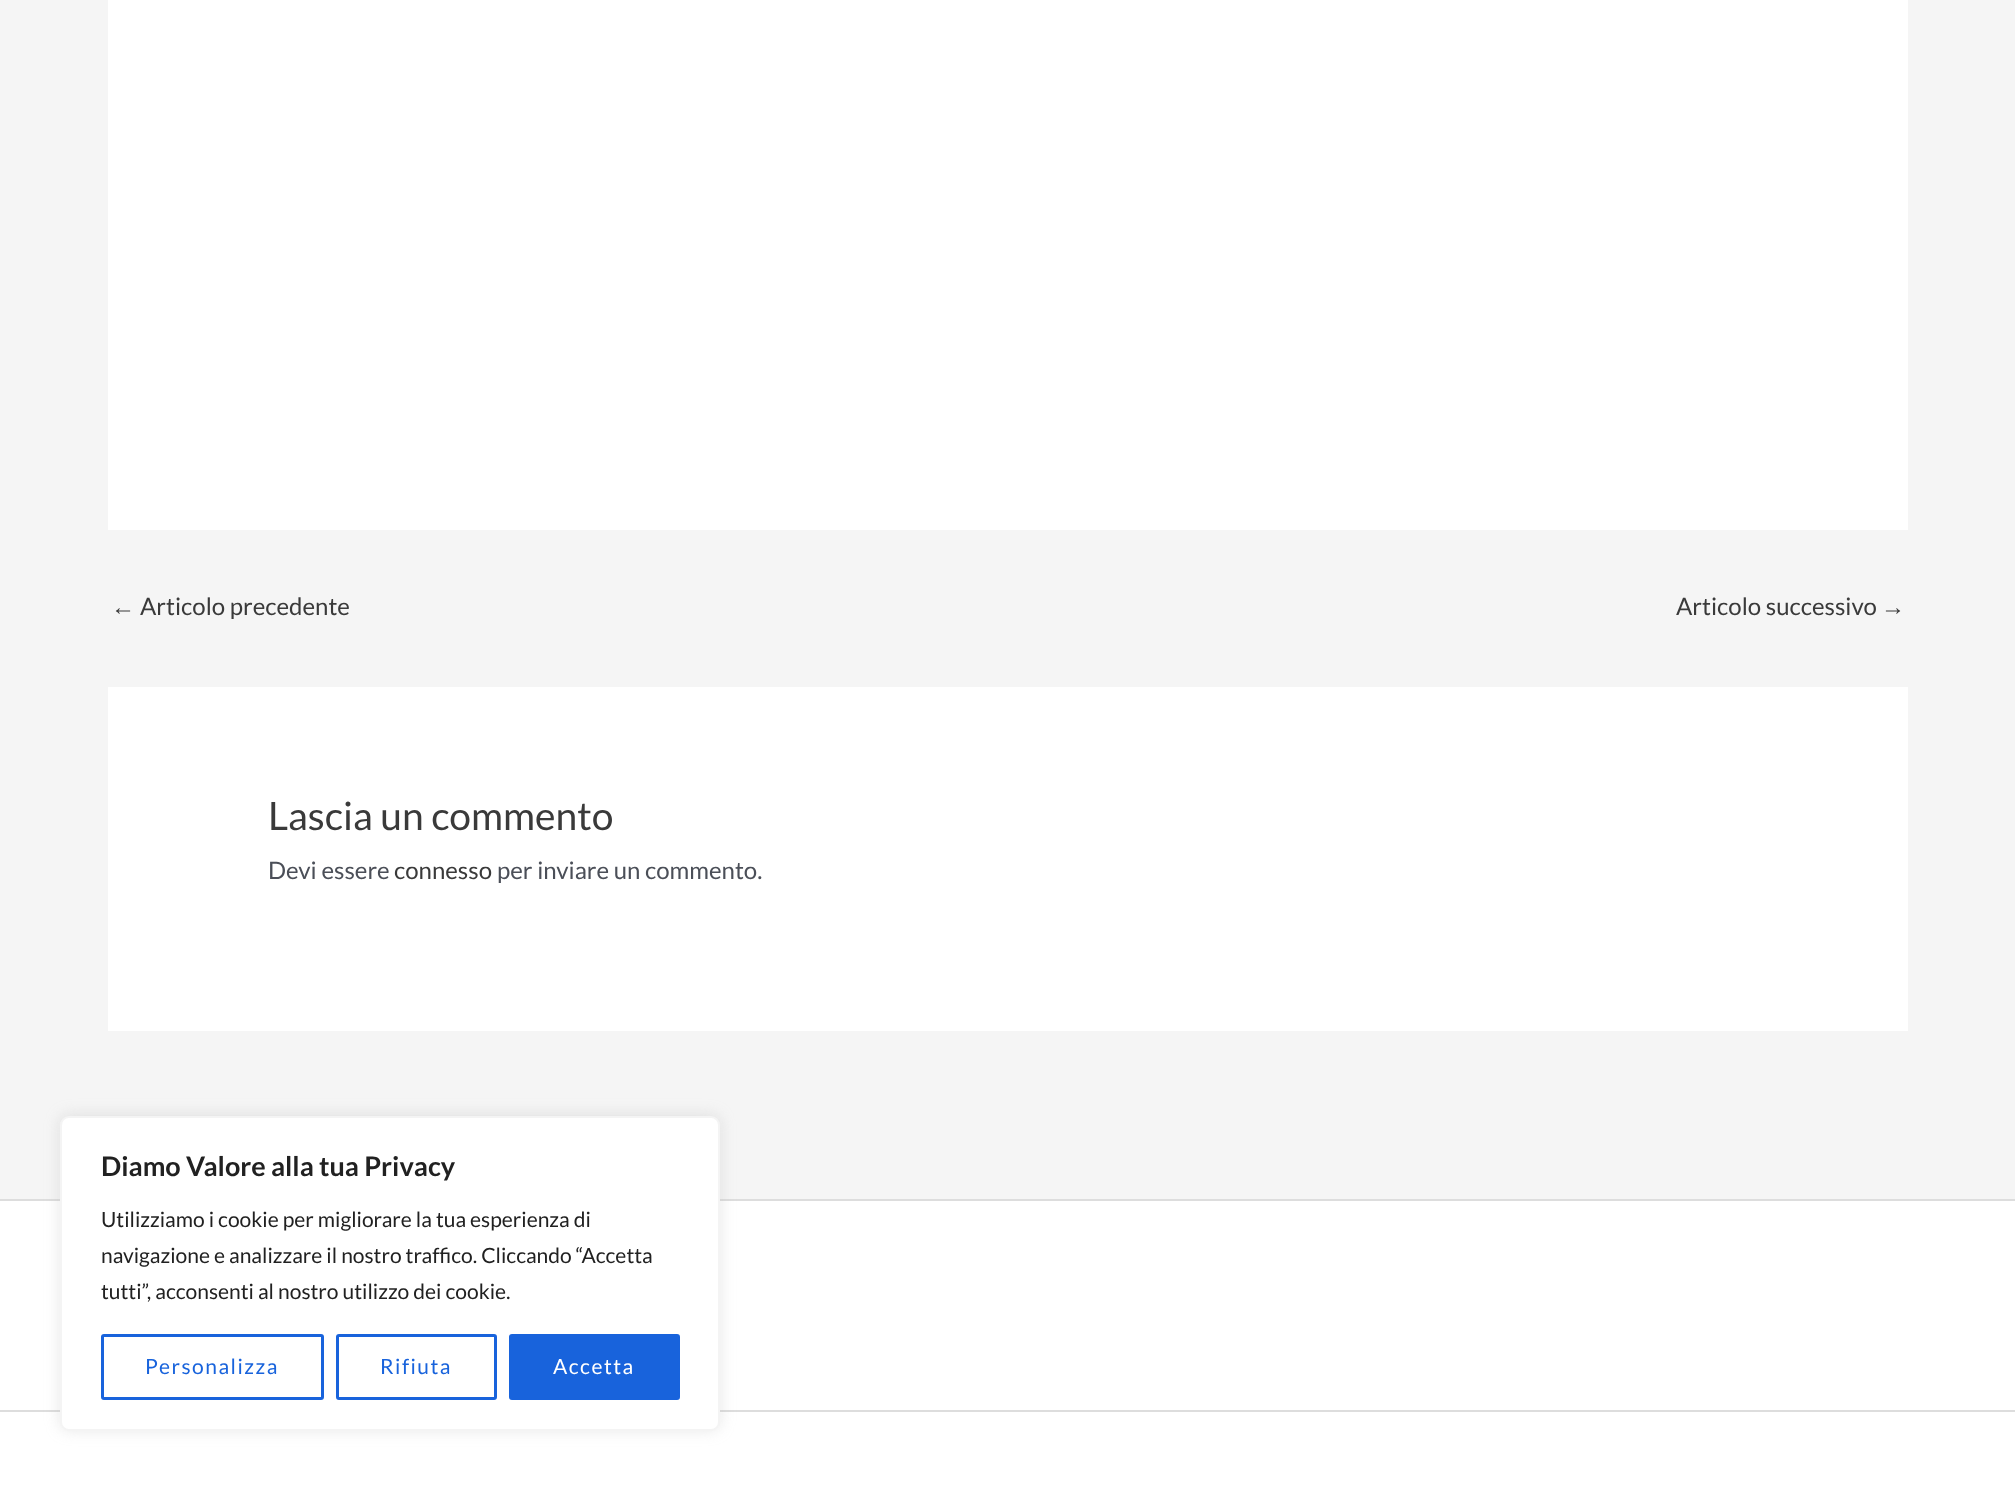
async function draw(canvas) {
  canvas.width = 2015
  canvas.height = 1491
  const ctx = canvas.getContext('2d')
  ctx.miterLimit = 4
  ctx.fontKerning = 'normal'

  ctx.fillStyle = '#f5f5f5'
  ctx.fillRect(0, 0, 2015, 1491)
  ctx.fillStyle = '#fff'
  ctx.fillRect(108, 0, 1800, 530)
  ctx.font = '24px Liberation Sans'
  ctx.fillStyle = '#3a3a3a'
  ctx.fillText('←', 111, 615)
  ctx.font = '24px Lato'
  ctx.fillText('Articolo precedente', 140, 615)
  ctx.fillText('Articolo successivo', 1676, 615)
  ctx.font = '24px Liberation Sans'
  ctx.fillText('→', 1881, 615)
  ctx.fillStyle = '#fff'
  ctx.fillRect(108, 687, 1800, 344)
  ctx.font = '39px Lato'
  ctx.fillStyle = '#3a3a3a'
  ctx.fillText('Lascia un commento', 268, 830)
  ctx.font = '24px Lato'
  ctx.fillStyle = '#4b4f58'
  ctx.fillText('Devi essere', 268, 879)
  ctx.fillStyle = '#3a3a3a'
  ctx.fillText('connesso', 394, 879)
  ctx.fillStyle = '#4b4f58'
  ctx.fillText('per inviare un commento.', 497, 879)
  ctx.fillStyle = '#fff'
  ctx.fillRect(0, 1201, 2015, 290)
  ctx.fillStyle = '#ddd'
  ctx.fillRect(0, 1199, 2015, 2)
  ctx.fillRect(0, 1410, 2015, 2)
  ctx.fillStyle = '#acabab4d'
  ctx.filter = 'blur(7.5px)'
  ctx.beginPath()
  ctx.roundRect(60, 1115, 660, 315, 9)
  ctx.fill()
  ctx.filter = 'none'
  ctx.fillStyle = '#fff'
  ctx.beginPath()
  ctx.roundRect(61, 1117, 658, 313, 8)
  ctx.fill()
  ctx.strokeStyle = '#f4f4f4'
  ctx.lineWidth = 2
  ctx.stroke()
  ctx.font = 'bold 27px Lato'
  ctx.fillStyle = '#212121'
  ctx.fillText('Diamo Valore alla tua Privacy', 101, 1176)
  ctx.font = '21px Lato'
  ctx.fillText('Utilizziamo i cookie per migliorare la tua esperienza di', 101, 1227)
  ctx.fillText('navigazione e analizzare il nostro traffico. Cliccando “Accetta', 101, 1263)
  ctx.fillText('tutti”, acconsenti al nostro utilizzo dei cookie.', 101, 1299)
  ctx.beginPath()
  ctx.roundRect(102.5, 1335.5, 220, 63, 1.5)
  ctx.strokeStyle = '#1863dc'
  ctx.lineWidth = 3
  ctx.stroke()
  ctx.letterSpacing = '1.5px'
  ctx.fillStyle = '#1863dc'
  ctx.fillText('Personalizza', 145, 1374)
  ctx.beginPath()
  ctx.roundRect(337.5, 1335.5, 158, 63, 1.5)
  ctx.stroke()
  ctx.fillText('Rifiuta', 380, 1374)
  ctx.beginPath()
  ctx.roundRect(510.5, 1335.5, 168, 63, 1.5)
  ctx.fill()
  ctx.stroke()
  ctx.fillStyle = '#fff'
  ctx.fillText('Accetta', 553, 1374)
}

draw(document.querySelector('canvas'))
